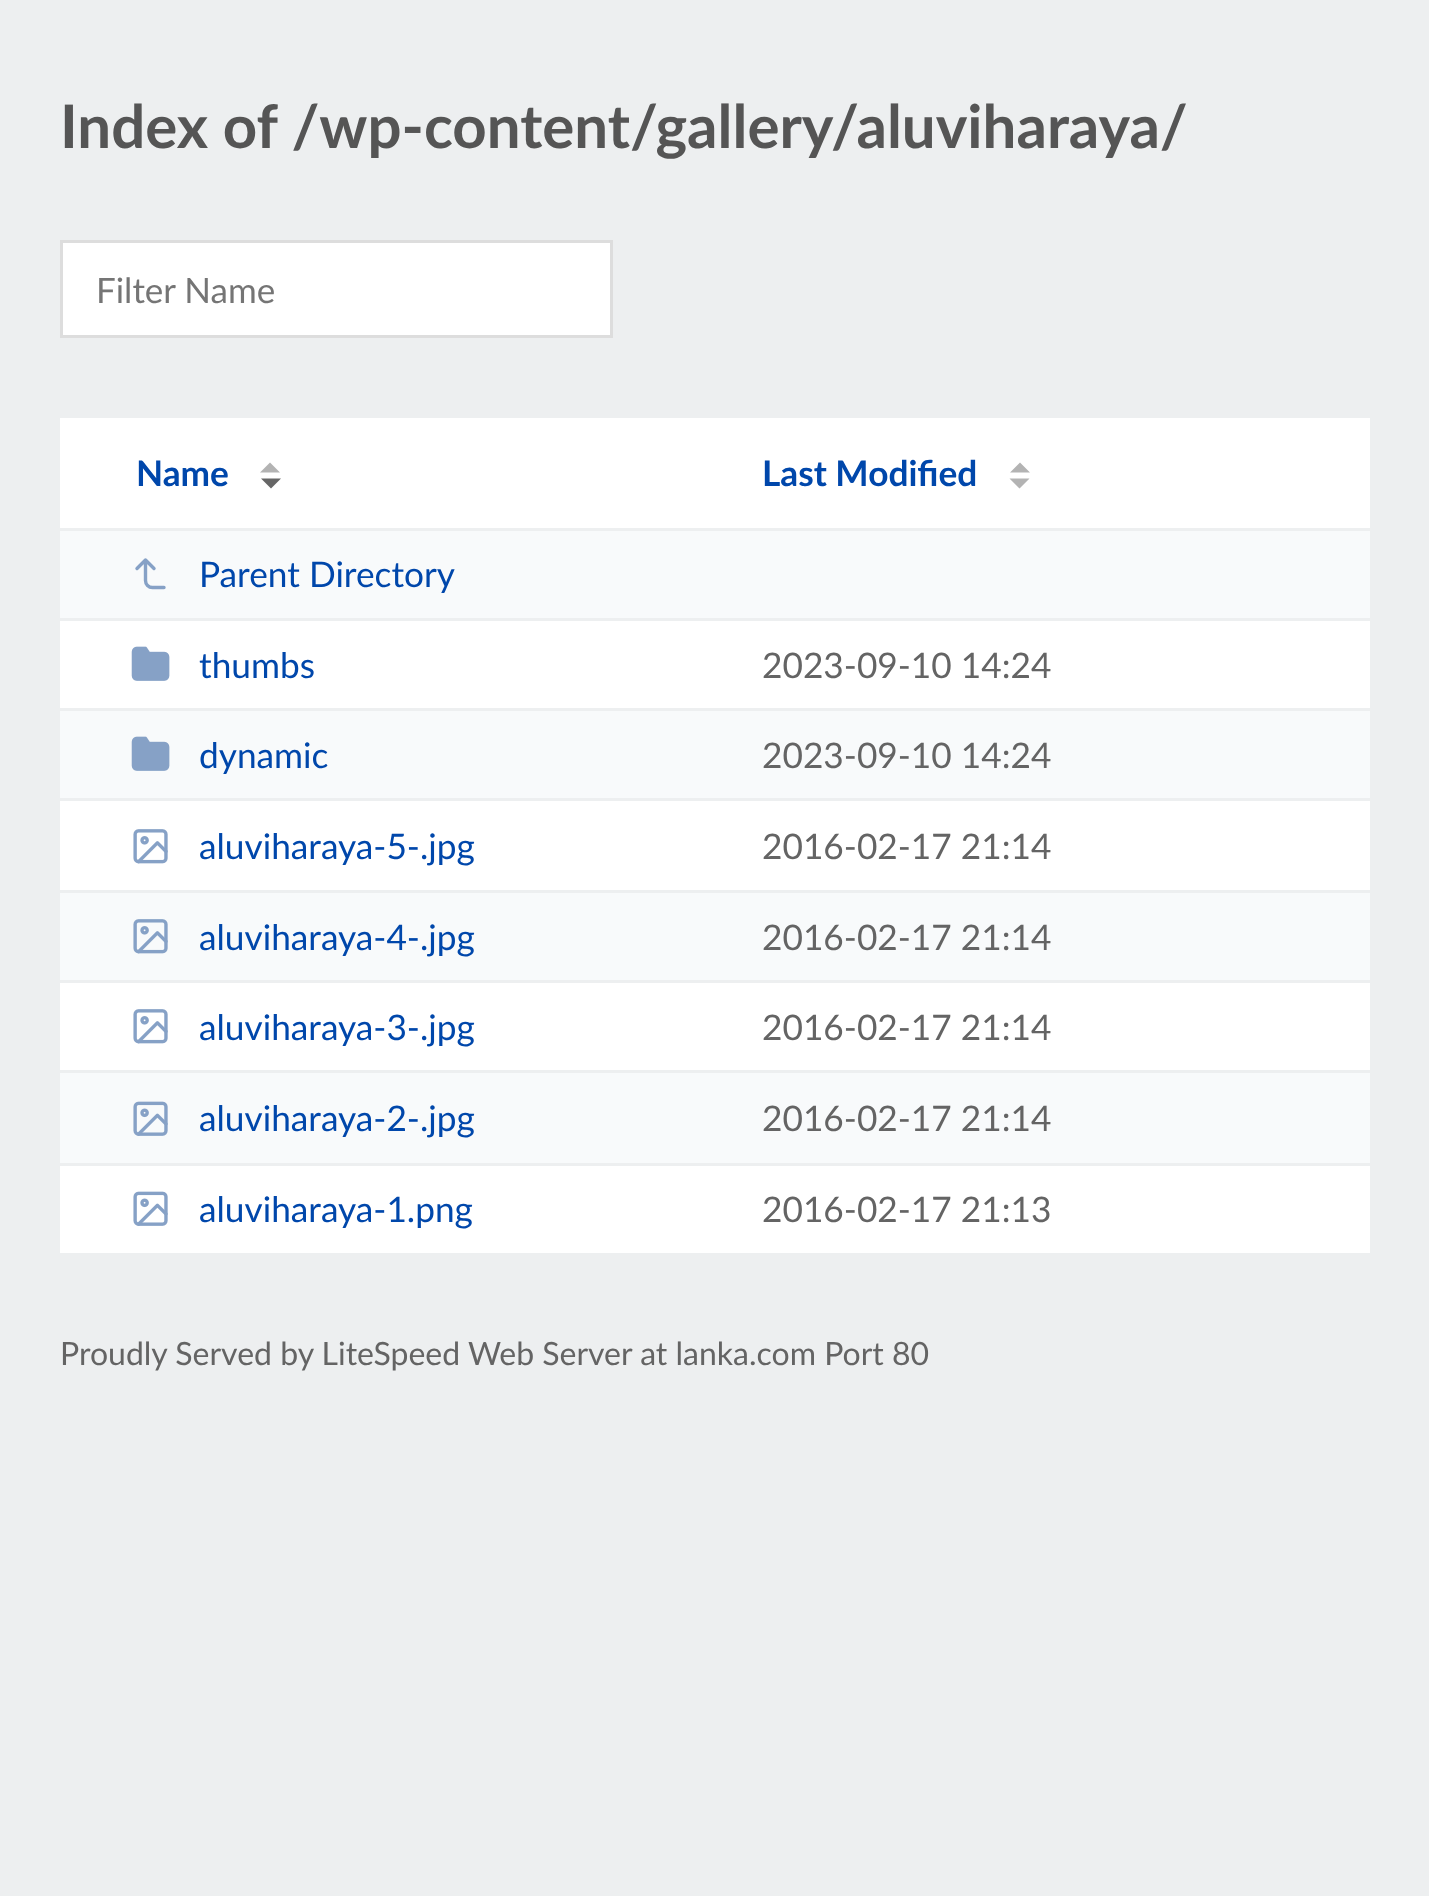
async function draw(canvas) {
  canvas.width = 1429
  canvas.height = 1896
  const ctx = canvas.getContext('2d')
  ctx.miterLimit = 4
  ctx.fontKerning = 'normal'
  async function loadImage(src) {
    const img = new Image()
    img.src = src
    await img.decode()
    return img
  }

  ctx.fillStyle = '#edeff0'
  ctx.fillRect(0, 0, 1429, 1896)
  ctx.font = 'bold 60px Lato'
  ctx.fillStyle = '#555'
  ctx.fillText('Index of /wp-content/gallery/aluviharaya/', 60, 148)
  ctx.fillStyle = '#fff'
  ctx.beginPath()
  ctx.rect(61.5, 241.5, 550, 95)
  ctx.fill()
  ctx.strokeStyle = '#ddd'
  ctx.lineWidth = 3
  ctx.stroke()
  ctx.font = '35px Lato'
  ctx.fillStyle = '#757575'
  ctx.fillText('Filter Name', 96, 303)
  ctx.fillStyle = '#fff'
  ctx.fillRect(60, 418, 1310, 835)
  ctx.font = 'bold 35.25px Lato'
  ctx.fillStyle = '#0047ab'
  ctx.fillText('Name', 136, 486)
  ctx.fillStyle = '#b3b3b3'
  ctx.beginPath()
  ctx.moveTo(280, 472.5)
  ctx.lineTo(260, 472.5)
  ctx.lineTo(270, 462.5)
  ctx.closePath()
  ctx.fill()
  ctx.fillStyle = '#666'
  ctx.beginPath()
  ctx.moveTo(261, 478.5)
  ctx.lineTo(281, 478.5)
  ctx.lineTo(271, 488.5)
  ctx.closePath()
  ctx.fill()
  ctx.fillStyle = '#0047ab'
  ctx.fillText('Last Modified', 762, 486)
  ctx.fillStyle = '#b3b3b3'
  ctx.beginPath()
  ctx.moveTo(1030, 472.5)
  ctx.lineTo(1010, 472.5)
  ctx.lineTo(1020, 462.5)
  ctx.closePath()
  ctx.moveTo(1009.5, 478.5)
  ctx.lineTo(1029.5, 478.5)
  ctx.lineTo(1019.5, 488.5)
  ctx.closePath()
  ctx.fill()
  ctx.fillStyle = '#f8fafb'
  ctx.fillRect(60, 531, 1310, 87)
  ctx.fillStyle = '#edeff0'
  ctx.fillRect(60, 528, 1310, 3)
  ctx.fillRect(60, 618, 1310, 3)
  ctx.beginPath()
  ctx.moveTo(154, 568.5)
  ctx.lineTo(145.5, 560)
  ctx.lineTo(137, 568.5)
  ctx.moveTo(164, 587.5)
  ctx.lineTo(152.5, 587.5)
  ctx.bezierCurveTo(148.5, 587.5, 145.5, 584.5, 145.5, 580.5)
  ctx.lineTo(145.5, 560)
  ctx.strokeStyle = '#86a1c6'
  ctx.lineWidth = 3.4
  ctx.lineCap = 'round'
  ctx.lineJoin = 'round'
  ctx.stroke()
  ctx.font = '35.25px Lato'
  ctx.fillStyle = '#0047ab'
  ctx.fillText('Parent Directory', 199, 587)
  ctx.drawImage(await loadImage('image0.png'), 131, 646, 39, 35)
  ctx.fillText('thumbs', 199, 678)
  ctx.fillStyle = '#646464'
  ctx.fillText('2023-09-10 14:24', 762, 678)
  ctx.fillStyle = '#f8fafb'
  ctx.fillRect(60, 711, 1310, 87)
  ctx.fillStyle = '#edeff0'
  ctx.fillRect(60, 708, 1310, 3)
  ctx.fillRect(60, 798, 1310, 3)
  ctx.drawImage(await loadImage('image1.png'), 131, 736, 39, 35)
  ctx.fillStyle = '#0047ab'
  ctx.fillText('dynamic', 199, 768)
  ctx.fillStyle = '#646464'
  ctx.fillText('2023-09-10 14:24', 762, 768)
  ctx.drawImage(await loadImage('image2.png'), 133, 829, 35, 35)
  ctx.fillStyle = '#0047ab'
  ctx.fillText('aluviharaya-5-.jpg', 199, 859)
  ctx.fillStyle = '#646464'
  ctx.fillText('2016-02-17 21:14', 762, 859)
  ctx.fillStyle = '#f8fafb'
  ctx.fillRect(60, 893, 1310, 87)
  ctx.fillStyle = '#edeff0'
  ctx.fillRect(60, 890, 1310, 3)
  ctx.fillRect(60, 980, 1310, 3)
  ctx.drawImage(await loadImage('image3.png'), 133, 919, 35, 35)
  ctx.fillStyle = '#0047ab'
  ctx.fillText('aluviharaya-4-.jpg', 199, 950)
  ctx.fillStyle = '#646464'
  ctx.fillText('2016-02-17 21:14', 762, 950)
  ctx.drawImage(await loadImage('image2.png'), 133, 1009, 35, 35)
  ctx.fillStyle = '#0047ab'
  ctx.fillText('aluviharaya-3-.jpg', 199, 1040)
  ctx.fillStyle = '#646464'
  ctx.fillText('2016-02-17 21:14', 762, 1040)
  ctx.fillStyle = '#f8fafb'
  ctx.fillRect(60, 1073, 1310, 90)
  ctx.fillStyle = '#edeff0'
  ctx.fillRect(60, 1070, 1310, 3)
  ctx.fillRect(60, 1163, 1310, 3)
  ctx.drawImage(await loadImage('image4.png'), 133, 1101, 35, 35)
  ctx.fillStyle = '#0047ab'
  ctx.fillText('aluviharaya-2-.jpg', 199, 1131)
  ctx.fillStyle = '#646464'
  ctx.fillText('2016-02-17 21:14', 762, 1131)
  ctx.drawImage(await loadImage('image5.png'), 133, 1191, 35, 35)
  ctx.fillStyle = '#0047ab'
  ctx.fillText('aluviharaya-1.png', 199, 1222)
  ctx.fillStyle = '#646464'
  ctx.fillText('2016-02-17 21:13', 762, 1222)
  ctx.font = '32px Lato'
  ctx.fillText('Proudly Served by LiteSpeed Web Server at lanka.com Port 80', 60, 1365)
}

draw(document.querySelector('canvas'))
